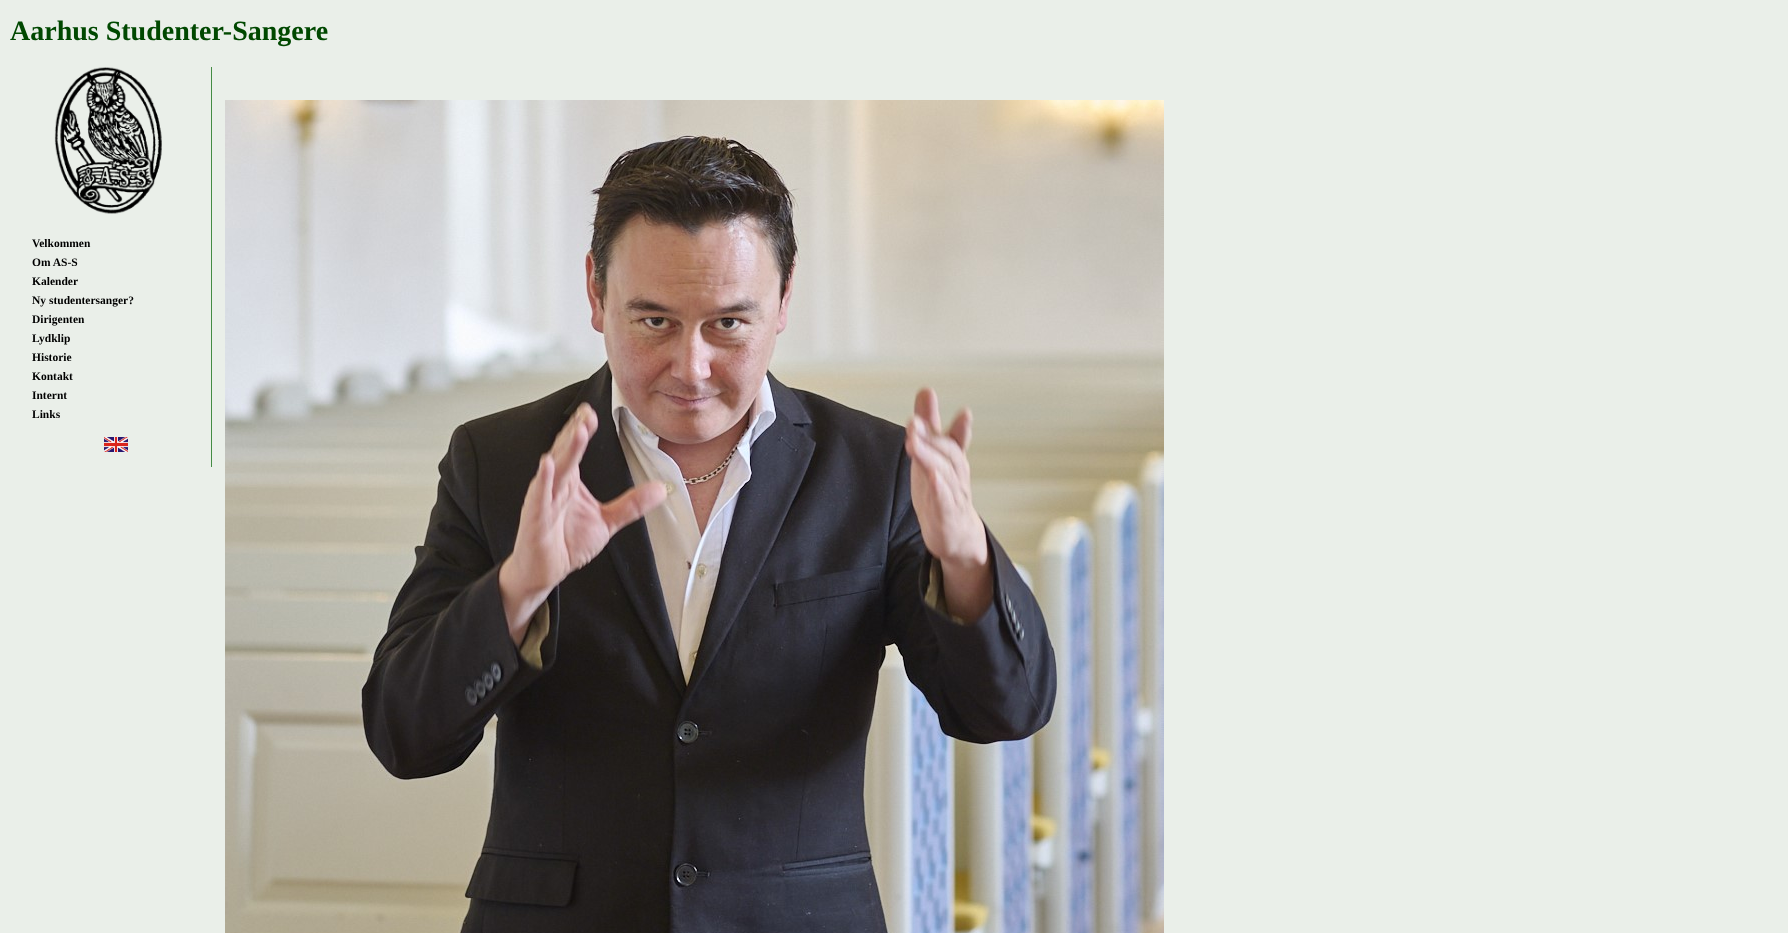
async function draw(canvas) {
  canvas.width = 1788
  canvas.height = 933
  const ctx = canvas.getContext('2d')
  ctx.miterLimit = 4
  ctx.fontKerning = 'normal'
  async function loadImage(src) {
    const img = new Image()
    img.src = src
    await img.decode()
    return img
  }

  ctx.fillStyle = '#eaefe9'
  ctx.fillRect(0, 0, 1788, 933)
  ctx.font = 'bold 28px Liberation Serif'
  ctx.fillStyle = '#004800'
  ctx.fillText('Aarhus Studenter-Sangere', 10, 40)
  ctx.fillStyle = '#448c44'
  ctx.fillRect(211, 67, 1, 401)
  ctx.fillStyle = '#eaefe9'
  ctx.fillRect(211, 467, 1, 1)
  ctx.drawImage(await loadImage('image0.png'), 54, 67, 108, 147)
  ctx.font = 'bold 11.5px Liberation Serif'
  ctx.fillStyle = '#000'
  ctx.fillText('Velkommen', 32, 247)
  ctx.fillText('Om AS-S', 32, 266)
  ctx.fillText('Kalender', 32, 285)
  ctx.fillText('Ny studentersanger?', 32, 304)
  ctx.fillText('Dirigenten', 32, 323)
  ctx.fillText('Lydklip', 32, 342)
  ctx.fillText('Historie', 32, 361)
  ctx.fillText('Kontakt', 32, 380)
  ctx.fillText('Internt', 32, 399)
  ctx.fillText('Links', 32, 418)
  ctx.drawImage(await loadImage('image1.png'), 104, 437, 24, 15)
  ctx.drawImage(await loadImage('image2.png'), 225, 100, 939, 833)
}

draw(document.querySelector('canvas'))
